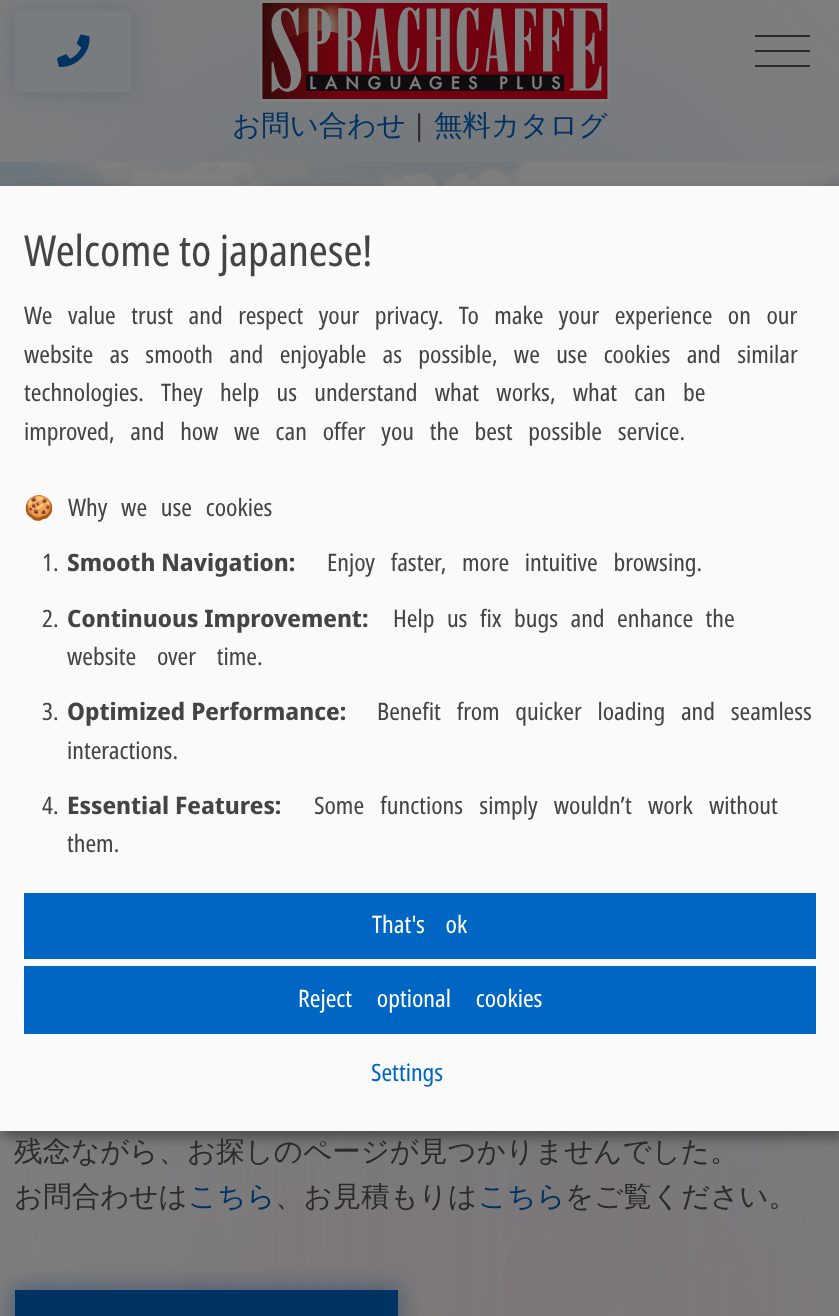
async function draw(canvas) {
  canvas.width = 839
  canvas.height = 1316
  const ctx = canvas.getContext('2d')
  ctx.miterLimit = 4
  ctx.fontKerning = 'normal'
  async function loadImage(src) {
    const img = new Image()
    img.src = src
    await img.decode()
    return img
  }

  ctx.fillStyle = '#808080'
  ctx.fillRect(0, 0, 839, 1316)
  ctx.drawImage(await loadImage('image0.png'), 0, 0, 839, 1316)
  ctx.fillStyle = '#68717a'
  ctx.filter = 'blur(11px)'
  ctx.beginPath()
  ctx.rect(12, 8, 122, 87)
  ctx.fill()
  ctx.filter = 'none'
  ctx.fillStyle = '#797c7e'
  ctx.fillRect(15, 11, 116, 81)
  ctx.drawImage(await loadImage('image1.png'), 57, 34, 33, 34)
  ctx.drawImage(await loadImage('image2.png'), 260, 0, 350, 102)
  ctx.fillStyle = '#2b2b2b'
  ctx.fillRect(755, 35, 55, 2)
  ctx.fillRect(755, 50, 55, 2)
  ctx.fillRect(755, 65, 55, 2)
  ctx.font = '500 28.5px WenQuanYi Zen Hei'
  ctx.fillStyle = '#003362'
  ctx.fillText('お問い合わせ', 232, 135)
  ctx.font = '28.5px Noto Sans Display'
  ctx.fillStyle = '#2b2b2b'
  ctx.fillText('|', 413, 135)
  ctx.font = '500 28.5px WenQuanYi Zen Hei'
  ctx.fillStyle = '#003362'
  ctx.fillText('無料カタログ', 434, 135)
  ctx.drawImage(await loadImage('image3.png'), 0, 162, 839, 24)
  ctx.fillStyle = '#00000030'
  ctx.filter = 'blur(7.5px)'
  ctx.beginPath()
  ctx.rect(8, 194, 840, 945)
  ctx.fill()
  ctx.filter = 'none'
  ctx.fillStyle = '#00000033'
  ctx.filter = 'blur(4.5px)'
  ctx.beginPath()
  ctx.rect(0, 192, 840, 945)
  ctx.fill()
  ctx.filter = 'none'
  ctx.fillStyle = '#fafafa'
  ctx.fillRect(0, 186, 839, 945)
  ctx.font = '42.75px Noto Sans Display'
  ctx.fillStyle = '#444'
  ctx.fillText('Welcome to japanese!', 24, 266)
  ctx.wordSpacing = '10.75px'
  ctx.font = '24px Noto Sans Display'
  ctx.fillText('We value trust and respect your privacy. To make your experience on our', 24, 324)
  ctx.wordSpacing = '11.6px'
  ctx.fillText('website as smooth and enjoyable as possible, we use cookies and similar', 24, 363)
  ctx.wordSpacing = '12.5px'
  ctx.fillText('technologies. They help us understand what works, what can be', 24, 401)
  ctx.wordSpacing = '11px'
  ctx.fillText('improved, and how we can offer you the best possible service.', 24, 440)
  ctx.wordSpacing = '0px'
  ctx.font = '24px Noto Color Emoji'
  ctx.fillText('🍪', 24, 516)
  ctx.wordSpacing = '9px'
  ctx.font = '24px Noto Sans Display'
  ctx.fillText('Why we use cookies', 68, 516)
  ctx.wordSpacing = '0px'
  ctx.fillText('1.', 42, 571)
  ctx.font = 'bold 24px Noto Sans Display'
  ctx.fillText('Smooth Navigation:', 67, 571)
  ctx.wordSpacing = '11px'
  ctx.font = '24px Noto Sans Display'
  ctx.fillText('Enjoy faster, more intuitive browsing.', 327, 571)
  ctx.wordSpacing = '0px'
  ctx.fillText('2.', 42, 627)
  ctx.font = 'bold 24px Noto Sans Display'
  ctx.fillText('Continuous Improvement:', 67, 627)
  ctx.wordSpacing = '7.75px'
  ctx.font = '24px Noto Sans Display'
  ctx.fillText('Help us fix bugs and enhance the', 393, 627)
  ctx.wordSpacing = '16px'
  ctx.fillText('website over time.', 67, 665)
  ctx.wordSpacing = '0px'
  ctx.fillText('3.', 42, 720)
  ctx.font = 'bold 24px Noto Sans Display'
  ctx.fillText('Optimized Performance:', 67, 720)
  ctx.wordSpacing = '11px'
  ctx.font = '24px Noto Sans Display'
  ctx.fillText('Benefit from quicker loading and seamless', 377, 720)
  ctx.wordSpacing = '0px'
  ctx.fillText('interactions.', 67, 759)
  ctx.fillText('4.', 42, 814)
  ctx.font = 'bold 24px Noto Sans Display'
  ctx.fillText('Essential Features:', 67, 814)
  ctx.wordSpacing = '11.5px'
  ctx.font = '24px Noto Sans Display'
  ctx.fillText('Some functions simply wouldn’t work without', 314, 814)
  ctx.wordSpacing = '0px'
  ctx.fillText('them.', 67, 852)
  ctx.fillStyle = '#0066c3'
  ctx.fillRect(24, 893, 792, 66)
  ctx.wordSpacing = '16px'
  ctx.fillStyle = '#fff'
  ctx.fillText('That\'s ok', 372, 933)
  ctx.fillStyle = '#0066c3'
  ctx.fillRect(24, 966, 792, 68)
  ctx.wordSpacing = '20px'
  ctx.fillStyle = '#fff'
  ctx.fillText('Reject optional cookies', 298, 1007)
  ctx.wordSpacing = '0px'
  ctx.fillStyle = '#0066c3'
  ctx.fillText('Settings', 371, 1081)
  ctx.font = '500 28.5px WenQuanYi Zen Hei'
  ctx.fillStyle = '#2b2b2b'
  ctx.fillText('残念ながら、お探しのページが見つかりませんでした。', 14, 1161)
  ctx.fillText('お問合わせは', 14, 1206)
  ctx.fillStyle = '#003362'
  ctx.fillText('こちら', 188, 1206)
  ctx.fillStyle = '#2b2b2b'
  ctx.fillText('、お見積もりは', 275, 1206)
  ctx.fillStyle = '#003362'
  ctx.fillText('こちら', 478, 1206)
  ctx.fillStyle = '#2b2b2b'
  ctx.fillText('をご覧ください。', 565, 1206)
  ctx.fillStyle = '#00336266'
  ctx.filter = 'blur(11px)'
  ctx.beginPath()
  ctx.rect(12, 1287, 389, 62)
  ctx.fill()
  ctx.filter = 'none'
  ctx.fillStyle = '#003362'
  ctx.fillRect(15, 1290, 383, 26)
}

draw(document.querySelector('canvas'))
